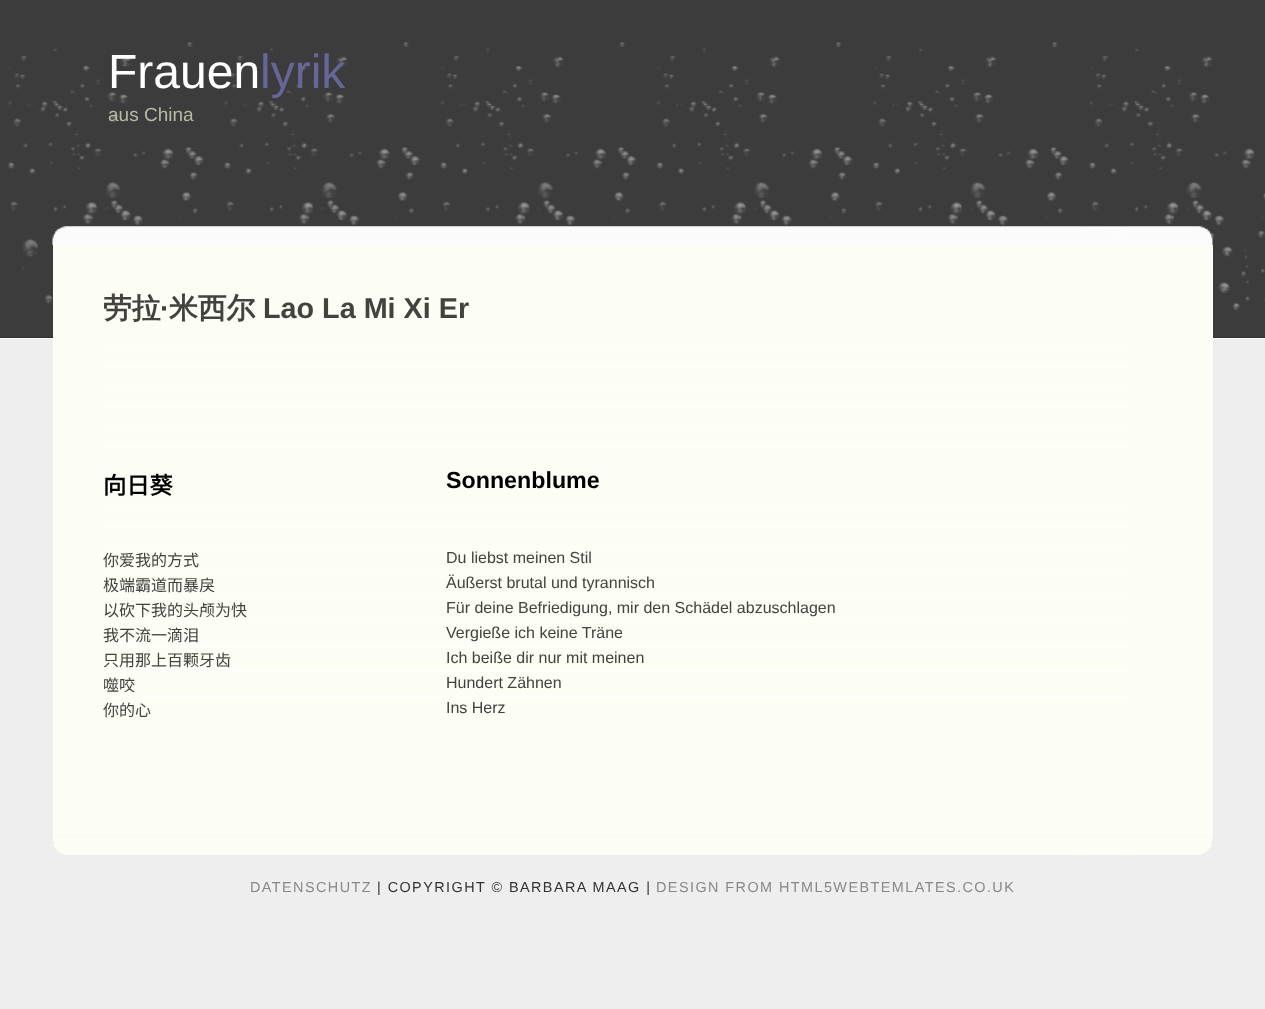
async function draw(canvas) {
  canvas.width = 1265
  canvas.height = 1009
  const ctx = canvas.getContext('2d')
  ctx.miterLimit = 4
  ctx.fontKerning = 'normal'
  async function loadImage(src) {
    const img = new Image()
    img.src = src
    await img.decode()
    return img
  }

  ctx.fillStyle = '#eee'
  ctx.fillRect(0, 0, 1265, 1009)
  ctx.drawImage(await loadImage('image0.png'), 0, 0, 1265, 338)
  ctx.fillStyle = '#fff'
  ctx.fillRect(0, 338, 1265, 1)
  ctx.font = '48px Liberation Sans'
  ctx.fillText('Frauen', 108, 88)
  ctx.fillStyle = '#669'
  ctx.fillText('lyrik', 260, 88)
  ctx.font = '19px Liberation Sans'
  ctx.fillStyle = '#b7b9a7'
  ctx.fillText('aus China', 108, 121)
  ctx.drawImage(await loadImage('image1.png'), 52, 226, 1161, 19)
  ctx.fillStyle = '#fcfdf4'
  ctx.fillRect(53, 245, 1160, 591)
  ctx.font = 'bold 28.75px WenQuanYi Zen Hei'
  ctx.fillStyle = '#43423f'
  ctx.fillText('劳拉', 103, 318)
  ctx.font = 'bold 28.75px Liberation Sans'
  ctx.fillText('·', 160, 318)
  ctx.font = 'bold 28.75px WenQuanYi Zen Hei'
  ctx.fillText('米西尔', 169, 318)
  ctx.font = 'bold 28.75px Liberation Sans'
  ctx.fillText('Lao La Mi Xi Er', 263, 318)
  ctx.fillStyle = '#fff'
  ctx.fillRect(103, 346, 1028, 1)
  ctx.fillRect(103, 366, 1028, 1)
  ctx.fillRect(103, 386, 1028, 1)
  ctx.fillRect(103, 406, 1028, 1)
  ctx.fillRect(103, 426, 1028, 1)
  ctx.fillRect(103, 446, 1028, 1)
  ctx.font = 'bold 23.25px Noto Sans CJK SC'
  ctx.fillStyle = '#000'
  ctx.fillText('向日葵', 103, 494)
  ctx.font = 'bold 23.25px Liberation Sans'
  ctx.fillText('Sonnenblume', 446, 488)
  ctx.fillStyle = '#fff'
  ctx.fillRect(103, 506, 1028, 1)
  ctx.fillRect(103, 526, 1028, 1)
  ctx.fillRect(103, 546, 1028, 1)
  ctx.font = '16px Noto Sans CJK SC'
  ctx.fillStyle = '#43423f'
  ctx.fillText('你爱我的方式', 103, 566)
  ctx.font = '16px Liberation Sans'
  ctx.fillText('Du liebst meinen Stil', 446, 563)
  ctx.fillStyle = '#fff'
  ctx.fillRect(103, 571, 1028, 1)
  ctx.font = '16px Noto Sans CJK SC'
  ctx.fillStyle = '#43423f'
  ctx.fillText('极端霸道而暴戾', 103, 591)
  ctx.font = '16px Liberation Sans'
  ctx.fillText('Äußerst brutal und tyrannisch', 446, 588)
  ctx.fillStyle = '#fff'
  ctx.fillRect(103, 596, 1028, 1)
  ctx.font = '16px Noto Sans CJK SC'
  ctx.fillStyle = '#43423f'
  ctx.fillText('以砍下我的头颅为快', 103, 616)
  ctx.font = '16px Liberation Sans'
  ctx.fillText('Für deine Befriedigung, mir den Schädel abzuschlagen', 446, 613)
  ctx.fillStyle = '#fff'
  ctx.fillRect(103, 621, 1028, 1)
  ctx.font = '16px Noto Sans CJK SC'
  ctx.fillStyle = '#43423f'
  ctx.fillText('我不流一滴泪', 103, 641)
  ctx.font = '16px Liberation Sans'
  ctx.fillText('Vergieße ich keine Träne', 446, 638)
  ctx.fillStyle = '#fff'
  ctx.fillRect(103, 646, 1028, 1)
  ctx.font = '16px Noto Sans CJK SC'
  ctx.fillStyle = '#43423f'
  ctx.fillText('只用那上百颗牙齿', 103, 666)
  ctx.font = '16px Liberation Sans'
  ctx.fillText('Ich beiße dir nur mit meinen', 446, 663)
  ctx.fillStyle = '#fff'
  ctx.fillRect(103, 671, 1028, 1)
  ctx.font = '16px Noto Sans CJK SC'
  ctx.fillStyle = '#43423f'
  ctx.fillText('噬咬', 103, 691)
  ctx.font = '16px Liberation Sans'
  ctx.fillText('Hundert Zähnen', 446, 688)
  ctx.fillStyle = '#fff'
  ctx.fillRect(103, 696, 1028, 1)
  ctx.font = '16px Noto Sans CJK SC'
  ctx.fillStyle = '#43423f'
  ctx.fillText('你的心', 103, 716)
  ctx.font = '16px Liberation Sans'
  ctx.fillText('Ins Herz', 446, 713)
  ctx.drawImage(await loadImage('image2.png'), 52, 836, 1161, 19)
  ctx.letterSpacing = '1.45px'
  ctx.font = '14.4px Liberation Sans'
  ctx.fillStyle = '#888'
  ctx.fillText('DATENSCHUTZ', 250, 892)
  ctx.fillStyle = '#333'
  ctx.fillText('| COPYRIGHT © BARBARA MAAG |', 377, 892)
  ctx.fillStyle = '#888'
  ctx.fillText('DESIGN FROM HTML5WEBTEMLATES.CO.UK', 656, 892)
}

draw(document.querySelector('canvas'))
